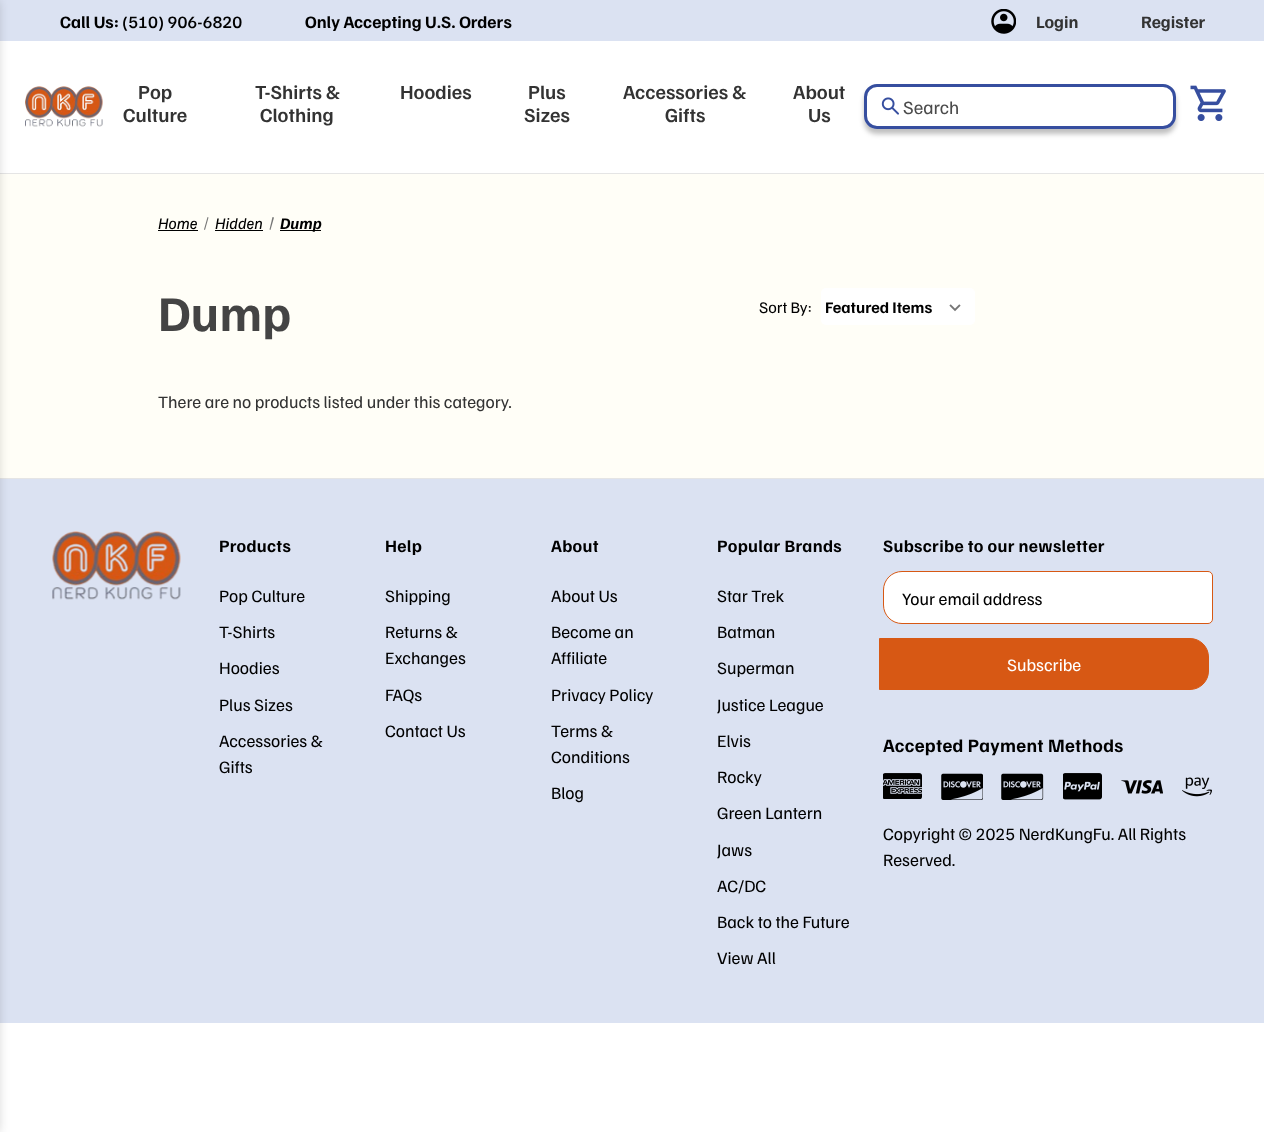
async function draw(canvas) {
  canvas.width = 1264
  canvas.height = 1132
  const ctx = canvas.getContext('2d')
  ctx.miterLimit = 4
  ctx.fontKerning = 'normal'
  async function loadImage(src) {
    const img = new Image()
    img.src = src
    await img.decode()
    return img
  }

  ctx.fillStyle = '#fff'
  ctx.fillRect(0, 0, 1264, 1132)
  ctx.fillStyle = '#dbe2f2'
  ctx.fillRect(0, 0, 1264, 41)
  ctx.fillStyle = '#e5e5e5'
  ctx.fillRect(0, 173, 1264, 1)
  ctx.fillStyle = '#fffef7'
  ctx.fillRect(0, 174, 1264, 304)
  ctx.fillStyle = '#dbe2f2'
  ctx.fillRect(0, 479, 1264, 544)
  ctx.fillStyle = '#e5e5e5'
  ctx.fillRect(0, 478, 1264, 1)
  ctx.fillStyle = '#00000033'
  ctx.filter = 'blur(6px)'
  ctx.beginPath()
  ctx.rect(-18, 0, 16, 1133)
  ctx.fill()
  ctx.filter = 'none'
  ctx.font = 'bold 17.5px Familjen Grotesk'
  ctx.fillStyle = '#000'
  ctx.fillText('Call Us:', 60, 28)
  ctx.font = '500 17.5px Familjen Grotesk'
  ctx.fillText('(510) 906-6820', 122, 28)
  ctx.font = 'bold 17.5px Familjen Grotesk'
  ctx.fillText('Only Accepting U.S. Orders', 305, 28)
  ctx.drawImage(await loadImage('image0.png'), 991, 9, 25, 25)
  ctx.fillStyle = '#333'
  ctx.fillText('Login', 1036, 28)
  ctx.fillText('Register', 1141, 28)
  ctx.drawImage(await loadImage('image1.png'), 25, 86, 78, 41)
  ctx.font = '600 20px Familjen Grotesk'
  ctx.fillText('Pop', 138, 99)
  ctx.fillText('Culture', 123, 122)
  ctx.fillText('T-Shirts &', 255, 99)
  ctx.fillText('Clothing', 260, 122)
  ctx.fillText('Hoodies', 400, 99)
  ctx.fillText('Plus', 528, 99)
  ctx.fillText('Sizes', 524, 122)
  ctx.fillText('Accessories &', 623, 99)
  ctx.fillText('Gifts', 665, 122)
  ctx.fillText('About', 793, 99)
  ctx.fillText('Us', 808, 122)
  ctx.save()
  ctx.beginPath()
  ctx.moveTo(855, 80)
  ctx.lineTo(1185, 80)
  ctx.lineTo(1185, 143)
  ctx.lineTo(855, 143)
  ctx.closePath()
  ctx.moveTo(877, 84)
  ctx.lineTo(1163, 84)
  ctx.bezierCurveTo(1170, 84, 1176, 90, 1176, 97)
  ctx.lineTo(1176, 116)
  ctx.bezierCurveTo(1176, 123, 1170, 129, 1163, 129)
  ctx.lineTo(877, 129)
  ctx.bezierCurveTo(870, 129, 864, 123, 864, 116)
  ctx.lineTo(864, 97)
  ctx.bezierCurveTo(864, 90, 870, 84, 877, 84)
  ctx.closePath()
  ctx.clip('evenodd')
  ctx.fillStyle = '#00000040'
  ctx.filter = 'blur(2.5px)'
  ctx.beginPath()
  ctx.roundRect(864, 89, 312, 45, 13)
  ctx.fill()
  ctx.filter = 'none'
  ctx.restore()
  ctx.beginPath()
  ctx.roundRect(865.5, 85.5, 309, 42, 11.5)
  ctx.strokeStyle = '#364e9f'
  ctx.lineWidth = 3
  ctx.stroke()
  ctx.drawImage(await loadImage('image2.png'), 881, 97, 18, 18)
  ctx.font = '18.75px Familjen Grotesk'
  ctx.fillStyle = '#4b4b4b'
  ctx.fillText('Search', 903, 114)
  ctx.drawImage(await loadImage('image3.png'), 1190, 85, 36, 36)
  ctx.font = 'italic 16.25px Familjen Grotesk'
  ctx.fillStyle = '#000'
  ctx.fillText('Home', 158, 229)
  ctx.fillRect(158, 230, 40, 1)
  ctx.fillStyle = '#757575'
  ctx.beginPath()
  ctx.moveTo(207.5, 217)
  ctx.lineTo(208.5, 217.5)
  ctx.lineTo(205, 230)
  ctx.lineTo(204, 229.5)
  ctx.closePath()
  ctx.fill()
  ctx.fillStyle = '#000'
  ctx.fillText('Hidden', 215, 229)
  ctx.fillRect(215, 230, 48, 1)
  ctx.fillStyle = '#757575'
  ctx.beginPath()
  ctx.moveTo(272.5, 217)
  ctx.lineTo(274, 217.5)
  ctx.lineTo(270.5, 230)
  ctx.lineTo(269.5, 229.5)
  ctx.closePath()
  ctx.fill()
  ctx.fillStyle = '#000'
  ctx.fillRect(280, 230, 41, 1)
  ctx.font = 'italic bold 16.25px Familjen Grotesk'
  ctx.fillText('Dump', 280, 229)
  ctx.letterSpacing = '0.3px'
  ctx.font = 'bold 50px Familjen Grotesk'
  ctx.fillStyle = '#444'
  ctx.fillText('Dump', 158, 331)
  ctx.letterSpacing = '0px'
  ctx.font = '16.25px Familjen Grotesk'
  ctx.fillStyle = '#000'
  ctx.fillText('Sort By:', 759, 313)
  ctx.fillStyle = '#fff'
  ctx.beginPath()
  ctx.roundRect(821, 288, 154, 37, 5)
  ctx.fill()
  ctx.drawImage(await loadImage('image4.png'), 949, 304, 12, 8)
  ctx.font = 'bold 16.25px Familjen Grotesk'
  ctx.fillStyle = '#000'
  ctx.fillText('Featured Items', 825, 313)
  ctx.font = '17.5px Familjen Grotesk'
  ctx.fillStyle = '#333'
  ctx.fillText('There are no products listed under this category.', 158, 408)
  ctx.drawImage(await loadImage('image5.png'), 52, 531, 129, 69)
  ctx.letterSpacing = '0.3px'
  ctx.font = 'bold 17.5px Familjen Grotesk'
  ctx.fillStyle = '#000'
  ctx.fillText('Products', 219, 552)
  ctx.letterSpacing = '0px'
  ctx.font = '17.5px Familjen Grotesk'
  ctx.fillText('Pop Culture', 219, 602)
  ctx.fillText('T-Shirts', 219, 638)
  ctx.fillText('Hoodies', 219, 674)
  ctx.fillText('Plus Sizes', 219, 711)
  ctx.fillText('Accessories &', 219, 747)
  ctx.fillText('Gifts', 219, 773)
  ctx.letterSpacing = '0.3px'
  ctx.font = 'bold 17.5px Familjen Grotesk'
  ctx.fillText('Help', 385, 552)
  ctx.letterSpacing = '0px'
  ctx.font = '17.5px Familjen Grotesk'
  ctx.fillText('Shipping', 385, 602)
  ctx.fillText('Returns &', 385, 638)
  ctx.fillText('Exchanges', 385, 664)
  ctx.fillText('FAQs', 385, 701)
  ctx.fillText('Contact Us', 385, 737)
  ctx.letterSpacing = '0.3px'
  ctx.font = 'bold 17.5px Familjen Grotesk'
  ctx.fillText('About', 551, 552)
  ctx.letterSpacing = '0px'
  ctx.font = '17.5px Familjen Grotesk'
  ctx.fillText('About Us', 551, 602)
  ctx.fillText('Become an', 551, 638)
  ctx.fillText('Affiliate', 551, 664)
  ctx.fillText('Privacy Policy', 551, 701)
  ctx.fillText('Terms &', 551, 737)
  ctx.fillText('Conditions', 551, 763)
  ctx.fillText('Blog', 551, 799)
  ctx.letterSpacing = '0.3px'
  ctx.font = 'bold 17.5px Familjen Grotesk'
  ctx.fillText('Popular Brands', 717, 552)
  ctx.letterSpacing = '0px'
  ctx.font = '17.5px Familjen Grotesk'
  ctx.fillText('Star Trek', 717, 602)
  ctx.fillText('Batman', 717, 638)
  ctx.fillText('Superman', 717, 674)
  ctx.fillText('Justice League', 717, 711)
  ctx.fillText('Elvis', 717, 747)
  ctx.fillText('Rocky', 717, 783)
  ctx.fillText('Green Lantern', 717, 819)
  ctx.fillText('Jaws', 717, 856)
  ctx.fillText('AC/DC', 717, 892)
  ctx.fillText('Back to the Future', 717, 928)
  ctx.fillText('View All', 717, 964)
  ctx.letterSpacing = '0.3px'
  ctx.font = 'bold 17.5px Familjen Grotesk'
  ctx.fillText('Subscribe to our newsletter', 883, 552)
  ctx.fillStyle = '#fff'
  ctx.beginPath()
  ctx.roundRect(883.5, 571.5, 329, 52, [18.5, 4.5, 4.5, 18.5])
  ctx.fill()
  ctx.strokeStyle = '#d75814'
  ctx.lineWidth = 1
  ctx.stroke()
  ctx.letterSpacing = '0px'
  ctx.font = '17.5px Familjen Grotesk'
  ctx.fillStyle = '#000'
  ctx.fillText('Your email address', 902, 605)
  ctx.fillStyle = '#d75814'
  ctx.beginPath()
  ctx.roundRect(879.5, 638.5, 329, 51, [0, 18.5, 18.5, 0])
  ctx.fill()
  ctx.stroke()
  ctx.fillStyle = '#fff'
  ctx.fillText('Subscribe', 1007, 671)
  ctx.letterSpacing = '0.3px'
  ctx.font = 'bold 18.75px Familjen Grotesk'
  ctx.fillStyle = '#000'
  ctx.fillText('Accepted Payment Methods', 883, 752)
  ctx.drawImage(await loadImage('image6.png'), 883, 773, 39, 26)
  ctx.drawImage(await loadImage('image7.png'), 941, 773, 42, 27)
  ctx.drawImage(await loadImage('image8.png'), 1001, 773, 43, 27)
  ctx.drawImage(await loadImage('image9.png'), 1063, 773, 39, 27)
  ctx.drawImage(await loadImage('image10.png'), 1121, 780, 42, 14)
  ctx.drawImage(await loadImage('image11.png'), 1182, 777, 30, 20)
  ctx.letterSpacing = '0px'
  ctx.font = '17.5px Familjen Grotesk'
  ctx.fillText('Copyright © 2025 NerdKungFu. All Rights', 883, 840)
  ctx.fillText('Reserved.', 883, 866)
}

draw(document.querySelector('canvas'))
